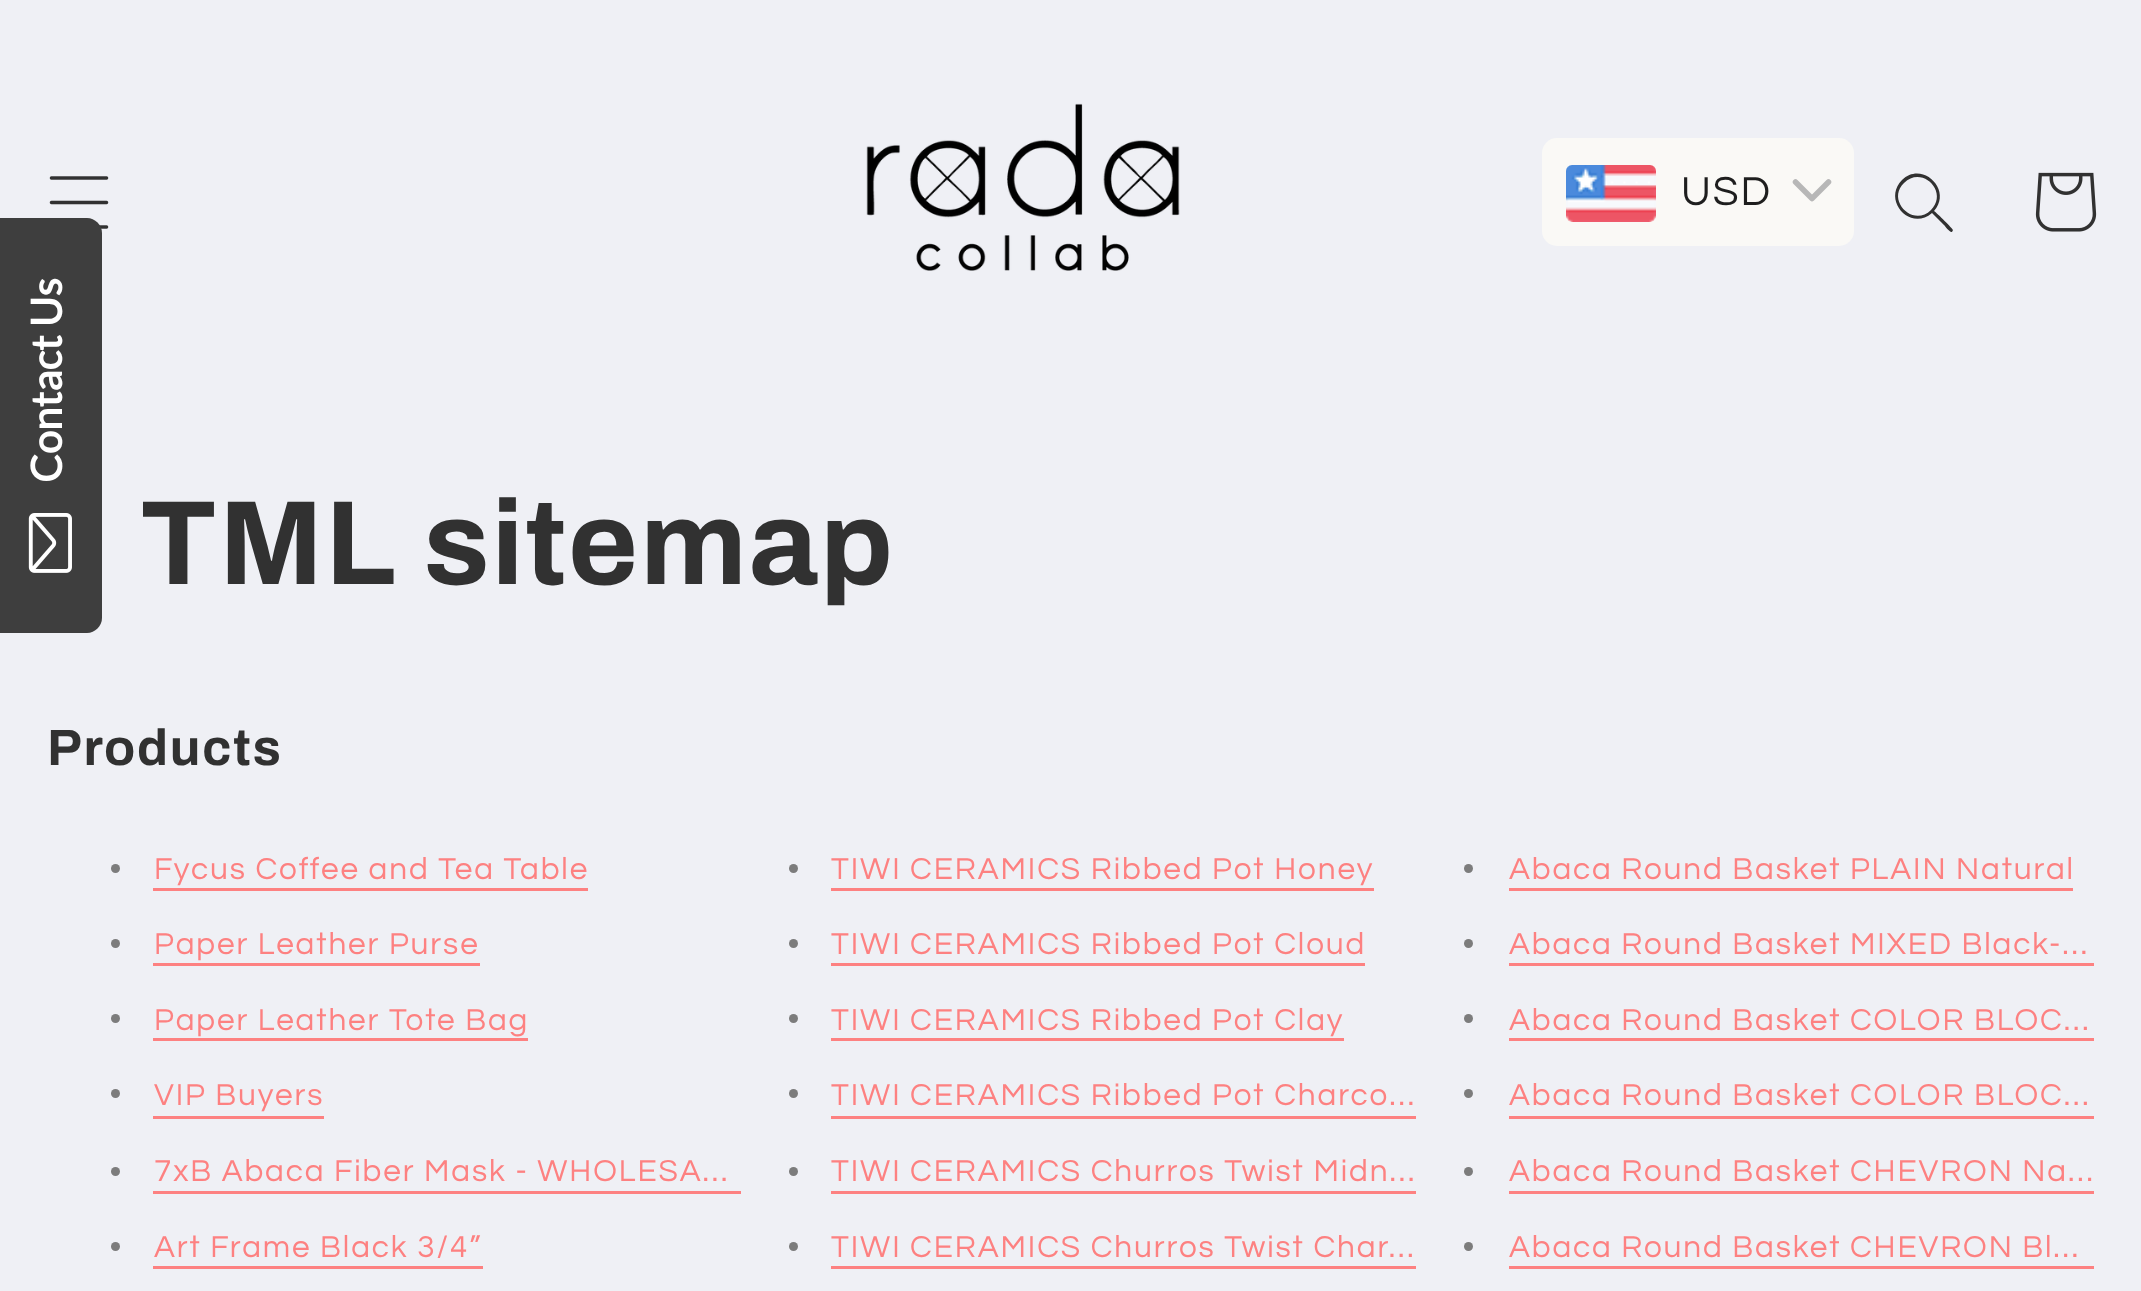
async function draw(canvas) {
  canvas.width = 2141
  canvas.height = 1291
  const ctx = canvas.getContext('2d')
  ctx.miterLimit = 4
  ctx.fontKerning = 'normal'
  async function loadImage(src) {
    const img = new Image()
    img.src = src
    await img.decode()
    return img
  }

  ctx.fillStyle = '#eff0f5'
  ctx.fillRect(0, 0, 2141, 1291)
  ctx.drawImage(await loadImage('image0.png'), 49, 176, 60, 53)
  ctx.drawImage(await loadImage('image1.png'), 866, 103, 314, 168)
  ctx.fillStyle = '#faf9f6'
  ctx.beginPath()
  ctx.roundRect(1542, 138, 312, 108, 15)
  ctx.fill()
  ctx.drawImage(await loadImage('image2.png'), 1566, 165, 90, 57)
  ctx.letterSpacing = '1.9px'
  ctx.font = '42px Questrial'
  ctx.fillStyle = '#1e1e1e'
  ctx.fillText('USD', 1681, 205)
  ctx.beginPath()
  ctx.moveTo(1795.5, 182)
  ctx.lineTo(1812, 198.5)
  ctx.lineTo(1828.5, 182)
  ctx.strokeStyle = '#b7b7b7'
  ctx.lineWidth = 5.5
  ctx.lineCap = 'round'
  ctx.lineJoin = 'round'
  ctx.stroke()
  ctx.fillStyle = '#313131'
  ctx.beginPath()
  ctx.moveTo(1931, 210)
  ctx.bezierCurveTo(1913, 228, 1886, 200, 1904, 183)
  ctx.bezierCurveTo(1922, 165, 1949, 192, 1931, 210)
  ctx.closePath()
  ctx.moveTo(1932, 213)
  ctx.bezierCurveTo(1910, 232, 1882, 200, 1902, 180)
  ctx.bezierCurveTo(1922, 160, 1953, 190, 1934, 211)
  ctx.bezierCurveTo(1937, 213, 1953, 229, 1953, 230)
  ctx.lineTo(1952, 232)
  ctx.bezierCurveTo(1950, 233, 1945, 226, 1944, 225)
  ctx.closePath()
  ctx.fill('evenodd')
  ctx.drawImage(await loadImage('image3.png'), 2035, 172, 62, 60)
  ctx.fillStyle = '#3e3e3e'
  ctx.beginPath()
  ctx.moveTo(-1, 633)
  ctx.lineTo(-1, 218)
  ctx.lineTo(87, 218)
  ctx.bezierCurveTo(95, 218, 102, 225, 102, 233)
  ctx.lineTo(102, 618)
  ctx.bezierCurveTo(102, 626, 95, 633, 87, 633)
  ctx.closePath()
  ctx.fill()
  ctx.letterSpacing = '0px'
  ctx.font = 'bold 42px Lato'
  ctx.fillStyle = '#fff'
  ctx.save()
  ctx.translate(62, 483)
  ctx.rotate(-90 * Math.PI / 180)
  ctx.fillText('Contact Us', 0, 0)
  ctx.restore()
  ctx.drawImage(await loadImage('image4.png'), 28, 513, 44, 60)
  ctx.letterSpacing = '1.75px'
  ctx.font = 'bold 120px Archivo'
  ctx.fillStyle = '#313131'
  ctx.fillText('TML sitemap', 140, 584)
  ctx.font = 'bold 51px Archivo'
  ctx.fillText('Products', 47, 765)
  ctx.fillStyle = '#7c7c7c'
  ctx.beginPath()
  ctx.arc(115.5, 868.5, 4.5, 0, 2 * Math.PI)
  ctx.fill()
  ctx.letterSpacing = '1.9px'
  ctx.font = '31.5px Questrial'
  ctx.fillStyle = '#fd8181'
  ctx.fillText('Fycus Coffee and Tea Table', 154, 879)
  ctx.fillRect(153, 888, 435, 3)
  ctx.fillStyle = '#7c7c7c'
  ctx.beginPath()
  ctx.arc(793.5, 868.5, 4.5, 0, 2 * Math.PI)
  ctx.fill()
  ctx.fillStyle = '#fd8181'
  ctx.fillText('TIWI CERAMICS Ribbed Pot Honey', 831, 879)
  ctx.fillRect(831, 888, 543, 3)
  ctx.fillStyle = '#7c7c7c'
  ctx.beginPath()
  ctx.arc(1468.5, 868.5, 4.5, 0, 2 * Math.PI)
  ctx.fill()
  ctx.fillStyle = '#fd8181'
  ctx.fillText('Abaca Round Basket PLAIN Natural', 1509, 879)
  ctx.fillRect(1509, 888, 564, 3)
  ctx.fillStyle = '#7c7c7c'
  ctx.beginPath()
  ctx.arc(115.5, 943.5, 4.5, 0, 2 * Math.PI)
  ctx.fill()
  ctx.fillStyle = '#fd8181'
  ctx.fillText('Paper Leather Purse', 154, 954)
  ctx.fillRect(153, 963, 327, 3)
  ctx.fillStyle = '#7c7c7c'
  ctx.beginPath()
  ctx.arc(793.5, 943.5, 4.5, 0, 2 * Math.PI)
  ctx.fill()
  ctx.fillStyle = '#fd8181'
  ctx.fillText('TIWI CERAMICS Ribbed Pot Cloud', 831, 954)
  ctx.fillRect(831, 963, 534, 3)
  ctx.fillStyle = '#7c7c7c'
  ctx.beginPath()
  ctx.arc(1468.5, 943.5, 4.5, 0, 2 * Math.PI)
  ctx.fill()
  ctx.fillStyle = '#fd8181'
  ctx.fillText('Abaca Round Basket MIXED Black-…', 1509, 954)
  ctx.fillRect(1509, 963, 585, 3)
  ctx.fillStyle = '#7c7c7c'
  ctx.beginPath()
  ctx.arc(115.5, 1018.5, 4.5, 0, 2 * Math.PI)
  ctx.fill()
  ctx.fillStyle = '#fd8181'
  ctx.fillText('Paper Leather Tote Bag', 154, 1030)
  ctx.fillRect(153, 1038, 375, 3)
  ctx.fillStyle = '#7c7c7c'
  ctx.beginPath()
  ctx.arc(793.5, 1018.5, 4.5, 0, 2 * Math.PI)
  ctx.fill()
  ctx.fillStyle = '#fd8181'
  ctx.fillText('TIWI CERAMICS Ribbed Pot Clay', 831, 1030)
  ctx.fillRect(831, 1038, 513, 3)
  ctx.fillStyle = '#7c7c7c'
  ctx.beginPath()
  ctx.arc(1468.5, 1018.5, 4.5, 0, 2 * Math.PI)
  ctx.fill()
  ctx.fillStyle = '#fd8181'
  ctx.fillText('Abaca Round Basket COLOR BLOC…', 1509, 1030)
  ctx.fillRect(1509, 1038, 585, 3)
  ctx.fillStyle = '#7c7c7c'
  ctx.beginPath()
  ctx.arc(115.5, 1093.5, 4.5, 0, 2 * Math.PI)
  ctx.fill()
  ctx.fillStyle = '#fd8181'
  ctx.fillText('VIP Buyers', 154, 1105)
  ctx.fillRect(153, 1116, 171, 3)
  ctx.fillStyle = '#7c7c7c'
  ctx.beginPath()
  ctx.arc(793.5, 1093.5, 4.5, 0, 2 * Math.PI)
  ctx.fill()
  ctx.fillStyle = '#fd8181'
  ctx.fillText('TIWI CERAMICS Ribbed Pot Charco…', 831, 1105)
  ctx.fillRect(831, 1116, 585, 3)
  ctx.fillStyle = '#7c7c7c'
  ctx.beginPath()
  ctx.arc(1468.5, 1093.5, 4.5, 0, 2 * Math.PI)
  ctx.fill()
  ctx.fillStyle = '#fd8181'
  ctx.fillText('Abaca Round Basket COLOR BLOC…', 1509, 1105)
  ctx.fillRect(1509, 1116, 585, 3)
  ctx.fillStyle = '#7c7c7c'
  ctx.beginPath()
  ctx.arc(115.5, 1171.5, 4.5, 0, 2 * Math.PI)
  ctx.fill()
  ctx.fillStyle = '#fd8181'
  ctx.fillText('7xB Abaca Fiber Mask - WHOLESA…', 154, 1181)
  ctx.fillRect(153, 1191, 588, 3)
  ctx.fillStyle = '#7c7c7c'
  ctx.beginPath()
  ctx.arc(793.5, 1171.5, 4.5, 0, 2 * Math.PI)
  ctx.fill()
  ctx.fillStyle = '#fd8181'
  ctx.fillText('TIWI CERAMICS Churros Twist Midn…', 831, 1181)
  ctx.fillRect(831, 1191, 585, 3)
  ctx.fillStyle = '#7c7c7c'
  ctx.beginPath()
  ctx.arc(1468.5, 1171.5, 4.5, 0, 2 * Math.PI)
  ctx.fill()
  ctx.fillStyle = '#fd8181'
  ctx.fillText('Abaca Round Basket CHEVRON Na…', 1509, 1181)
  ctx.fillRect(1509, 1191, 585, 3)
  ctx.fillStyle = '#7c7c7c'
  ctx.beginPath()
  ctx.arc(115.5, 1246.5, 4.5, 0, 2 * Math.PI)
  ctx.fill()
  ctx.fillStyle = '#fd8181'
  ctx.fillText('Art Frame Black 3/4”', 154, 1257)
  ctx.fillRect(153, 1266, 330, 3)
  ctx.fillStyle = '#7c7c7c'
  ctx.beginPath()
  ctx.arc(793.5, 1246.5, 4.5, 0, 2 * Math.PI)
  ctx.fill()
  ctx.fillStyle = '#fd8181'
  ctx.fillText('TIWI CERAMICS Churros Twist Char…', 831, 1257)
  ctx.fillRect(831, 1266, 585, 3)
  ctx.fillStyle = '#7c7c7c'
  ctx.beginPath()
  ctx.arc(1468.5, 1246.5, 4.5, 0, 2 * Math.PI)
  ctx.fill()
  ctx.fillStyle = '#fd8181'
  ctx.fillText('Abaca Round Basket CHEVRON Bl…', 1509, 1257)
  ctx.fillRect(1509, 1266, 585, 3)
}

draw(document.querySelector('canvas'))
